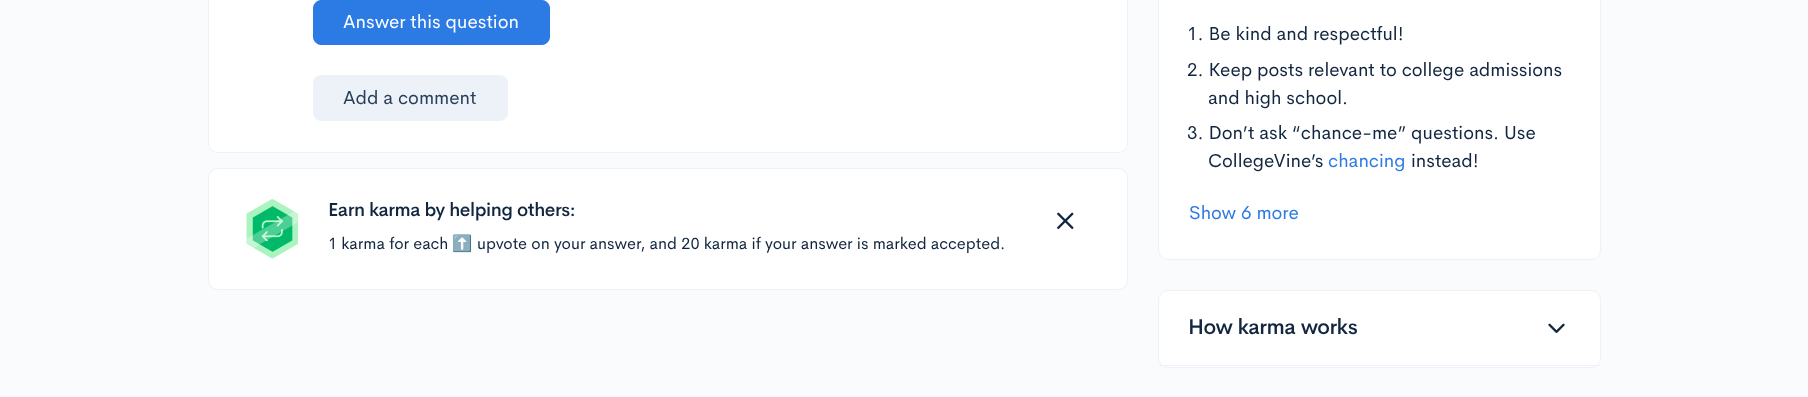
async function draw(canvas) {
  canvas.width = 1808
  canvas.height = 397
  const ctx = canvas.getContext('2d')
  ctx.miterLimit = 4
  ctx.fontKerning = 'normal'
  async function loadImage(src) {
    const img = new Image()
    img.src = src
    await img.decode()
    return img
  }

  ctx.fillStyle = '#f9fbfd'
  ctx.fillRect(0, 0, 1808, 397)
  ctx.fillStyle = '#fff'
  ctx.beginPath()
  ctx.roundRect(208.5, -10.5, 919, 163, 9.5)
  ctx.fill()
  ctx.strokeStyle = '#edf2f9'
  ctx.stroke()
  ctx.fillStyle = '#2c7be5'
  ctx.beginPath()
  ctx.roundRect(313.5, 0.5, 236, 44, 7.5)
  ctx.fill()
  ctx.strokeStyle = '#2c7be5'
  ctx.stroke()
  ctx.font = '18.75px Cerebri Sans'
  ctx.fillStyle = '#fff'
  ctx.fillText('Answer this question', 343, 28)
  ctx.fillStyle = '#edf2f9'
  ctx.beginPath()
  ctx.roundRect(313.5, 75.5, 194, 45, 7.5)
  ctx.fill()
  ctx.strokeStyle = '#edf2f9'
  ctx.stroke()
  ctx.fillStyle = '#283e59'
  ctx.fillText('Add a comment', 343, 104)
  ctx.fillStyle = '#fff'
  ctx.beginPath()
  ctx.roundRect(208.5, 168.5, 919, 121, 9.5)
  ctx.fill()
  ctx.stroke()
  ctx.drawImage(await loadImage('image0.png'), 246, 199, 52, 60)
  ctx.letterSpacing = '-0.4px'
  ctx.font = '500 18.75px Cerebri Sans'
  ctx.fillStyle = '#12263f'
  ctx.fillText('Earn karma by helping others:', 328, 216)
  ctx.letterSpacing = '0px'
  ctx.font = '16.25px Cerebri Sans'
  ctx.fillText('1 karma for each', 328, 249)
  ctx.font = '16.25px Noto Color Emoji'
  ctx.fillText('⬆️', 452, 249)
  ctx.font = '16.25px Cerebri Sans'
  ctx.fillText('upvote on your answer, and 20 karma if your answer is marked accepted.', 477, 249)
  ctx.drawImage(await loadImage('image1.png'), 1057, 212, 17, 17)
  ctx.fillStyle = '#fff'
  ctx.beginPath()
  ctx.roundRect(1158.5, -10.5, 442, 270, 9.5)
  ctx.fill()
  ctx.stroke()
  ctx.font = '18.75px Cerebri Sans'
  ctx.fillStyle = '#12263f'
  ctx.fillText('1. Be kind and respectful!', 1187, 40)
  ctx.fillText('2. Keep posts relevant to college admissions', 1187, 76)
  ctx.fillText('and high school.', 1208, 104)
  ctx.fillText('3. Don’t ask “chance-me” questions. Use', 1187, 139)
  ctx.fillText('CollegeVine’s', 1208, 167)
  ctx.fillStyle = '#2c7be5'
  ctx.fillText('chancing', 1328, 167)
  ctx.fillStyle = '#12263f'
  ctx.fillText('instead!', 1411, 167)
  ctx.fillStyle = '#2c7be5'
  ctx.fillText('Show 6 more', 1189, 219)
  ctx.fillStyle = '#fff'
  ctx.beginPath()
  ctx.roundRect(1158.5, 290.5, 442, 77, 9.5)
  ctx.fill()
  ctx.stroke()
  ctx.fillStyle = '#edf2f9'
  ctx.fillRect(1159, 365, 441, 1)
  ctx.letterSpacing = '-0.4px'
  ctx.font = '500 21.25px Cerebri Sans'
  ctx.fillStyle = '#12263f'
  ctx.fillText('How karma works', 1188, 334)
  ctx.drawImage(await loadImage('image2.png'), 1548, 323, 17, 10)
}

draw(document.querySelector('canvas'))
